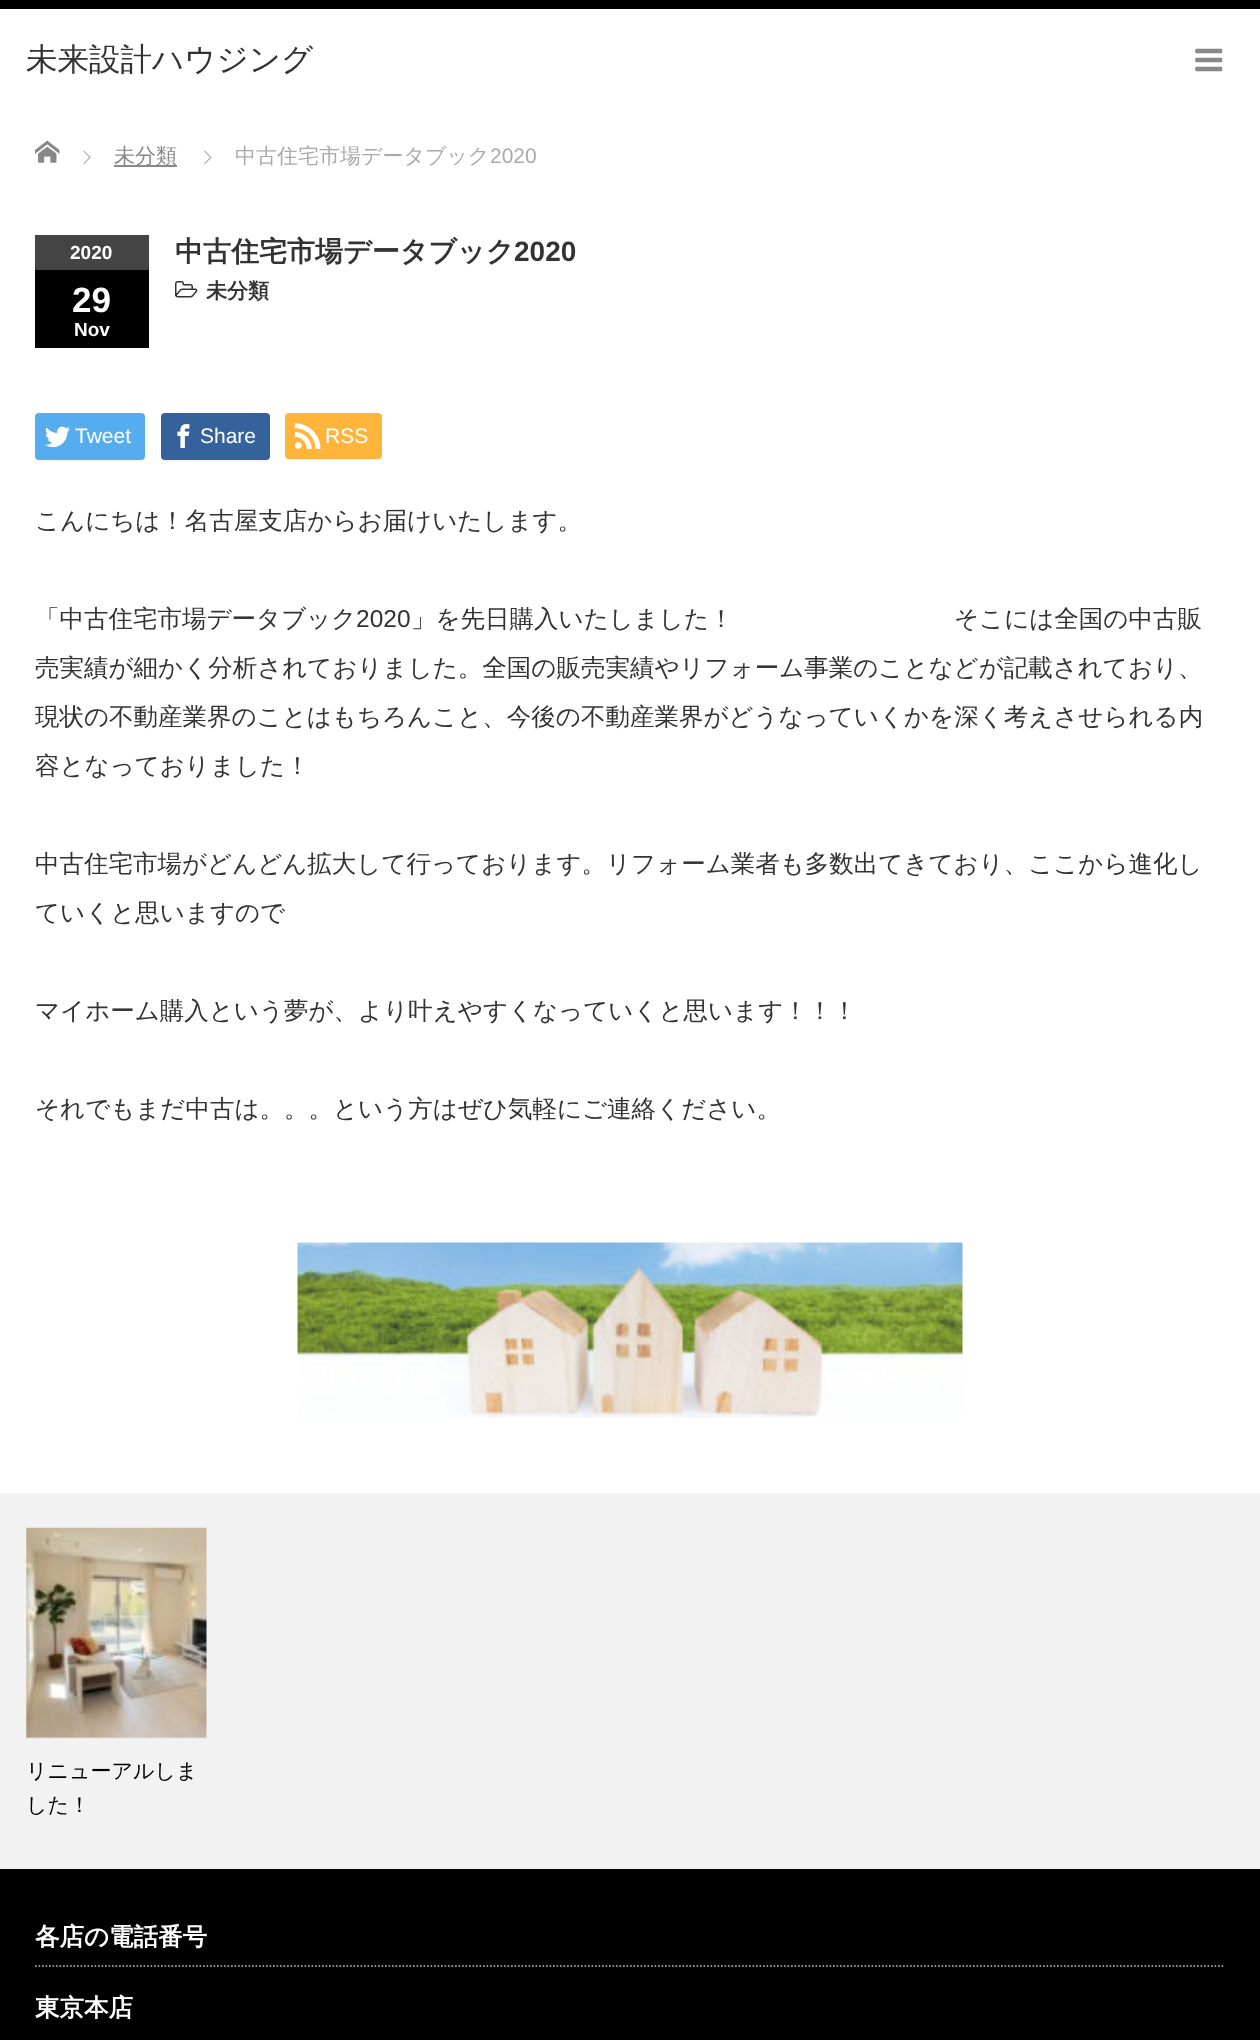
async function draw(canvas) {
  canvas.width = 1260
  canvas.height = 2040
  const ctx = canvas.getContext('2d')
  ctx.miterLimit = 4
  ctx.fontKerning = 'normal'
  async function loadImage(src) {
    const img = new Image()
    img.src = src
    await img.decode()
    return img
  }

  ctx.fillStyle = '#fff'
  ctx.fillRect(0, 0, 1260, 2040)
  ctx.fillStyle = '#000'
  ctx.fillRect(0, 0, 1260, 9)
  ctx.font = '500 31.5px WenQuanYi Zen Hei'
  ctx.fillStyle = '#333'
  ctx.fillText('未来設計ハウジング', 26, 70)
  ctx.drawImage(await loadImage('image0.png'), 1195, 48, 28, 24)
  ctx.drawImage(await loadImage('image1.png'), 35, 140, 25, 23)
  ctx.drawImage(await loadImage('image2.png'), 83, 150, 8, 14)
  ctx.fillStyle = '#888'
  ctx.fillRect(114, 165, 63, 2)
  ctx.font = '500 21px WenQuanYi Zen Hei'
  ctx.fillText('未分類', 114, 163)
  ctx.drawImage(await loadImage('image3.png'), 204, 150, 8, 15)
  ctx.fillStyle = '#aaa'
  ctx.fillText('中古住宅市場データブック', 235, 163)
  ctx.font = '21px Liberation Sans'
  ctx.fillText('2020', 490, 163)
  ctx.font = 'bold 28px WenQuanYi Zen Hei'
  ctx.fillStyle = '#333'
  ctx.fillText('中古住宅市場データブック', 175, 261)
  ctx.font = 'bold 28px Liberation Sans'
  ctx.fillText('2020', 514, 261)
  ctx.drawImage(await loadImage('image4.png'), 175, 281, 23, 17)
  ctx.font = 'bold 21px WenQuanYi Zen Hei'
  ctx.fillText('未分類', 206, 298)
  ctx.fillStyle = '#f7f7f7'
  ctx.beginPath()
  ctx.moveTo(35, 457)
  ctx.lineTo(35, 458)
  ctx.bezierCurveTo(35, 460, 37, 462, 39, 462)
  ctx.lineTo(141, 462)
  ctx.bezierCurveTo(143, 462, 145, 460, 145, 458)
  ctx.bezierCurveTo(144, 459, 143, 460, 142, 460)
  ctx.lineTo(38, 460)
  ctx.bezierCurveTo(37, 460, 35, 459, 35, 457)
  ctx.closePath()
  ctx.fill()
  ctx.fillStyle = '#55acee'
  ctx.beginPath()
  ctx.roundRect(35, 413, 110, 47, 4)
  ctx.fill()
  ctx.drawImage(await loadImage('image5.png'), 45, 426, 25, 22)
  ctx.font = '21px Liberation Sans'
  ctx.fillStyle = '#fff'
  ctx.fillText('Tweet', 75, 443)
  ctx.fillStyle = '#f7f7f7'
  ctx.beginPath()
  ctx.moveTo(161, 457)
  ctx.lineTo(161, 458)
  ctx.bezierCurveTo(161, 460, 163, 462, 165, 462)
  ctx.lineTo(266, 462)
  ctx.bezierCurveTo(268, 462, 270, 460, 270, 458)
  ctx.lineTo(270, 419)
  ctx.lineTo(270, 417)
  ctx.lineTo(270, 457)
  ctx.bezierCurveTo(270, 459, 268, 460, 266, 460)
  ctx.lineTo(164, 460)
  ctx.bezierCurveTo(163, 460, 161, 459, 161, 457)
  ctx.closePath()
  ctx.fill()
  ctx.fillStyle = '#35629a'
  ctx.beginPath()
  ctx.roundRect(161, 413, 109, 47, 4)
  ctx.fill()
  ctx.drawImage(await loadImage('image6.png'), 177, 424, 13, 24)
  ctx.fillStyle = '#fff'
  ctx.fillText('Share', 200, 443)
  ctx.fillStyle = '#f7f7f7'
  ctx.beginPath()
  ctx.moveTo(285, 418)
  ctx.lineTo(285, 444)
  ctx.bezierCurveTo(285, 463, 283, 460, 304, 460)
  ctx.lineTo(363, 460)
  ctx.bezierCurveTo(384, 460, 382, 463, 382, 444)
  ctx.lineTo(382, 425)
  ctx.bezierCurveTo(382, 424, 383, 419, 382, 417)
  ctx.lineTo(382, 455)
  ctx.bezierCurveTo(382, 457, 380, 458, 378, 458)
  ctx.lineTo(289, 458)
  ctx.bezierCurveTo(287, 458, 285, 457, 285, 455)
  ctx.closePath()
  ctx.fill()
  ctx.fillStyle = '#ffb53c'
  ctx.beginPath()
  ctx.roundRect(285, 413, 97, 46, 4)
  ctx.fill()
  ctx.drawImage(await loadImage('image7.png'), 294, 423, 27, 26)
  ctx.fillStyle = '#fff'
  ctx.fillText('RSS', 325, 443)
  ctx.font = '500 24.5px WenQuanYi Zen Hei'
  ctx.fillStyle = '#333'
  ctx.fillText('こんにちは！名古屋支店からお届けいたします。', 35, 529)
  ctx.fillText('「中古住宅市場データブック', 35, 627)
  ctx.font = '24.5px Liberation Sans'
  ctx.fillText('2020', 356, 627)
  ctx.font = '500 24.5px WenQuanYi Zen Hei'
  ctx.fillText('」を先日購入いたしました！　　　　　　　　　そこには全国の中古販', 411, 627)
  ctx.fillText('売実績が細かく分析されておりました。全国の販売実績やリフォーム事業のことなどが記載されており、', 35, 676)
  ctx.fillText('現状の不動産業界のことはもちろんこと、今後の不動産業界がどうなっていくかを深く考えさせられる内', 35, 725)
  ctx.fillText('容となっておりました！', 35, 774)
  ctx.fillText('中古住宅市場がどんどん拡大して行っております。リフォーム業者も多数出てきており、ここから進化し', 35, 872)
  ctx.fillText('ていくと思いますので', 35, 921)
  ctx.fillText('マイホーム購入という夢が、より叶えやすくなっていくと思います！！！', 35, 1019)
  ctx.fillText('それでもまだ中古は。。。という方はぜひ気軽にご連絡ください。', 35, 1117)
  ctx.fillStyle = '#000'
  ctx.fillRect(35, 270, 114, 78)
  ctx.fillStyle = '#444'
  ctx.fillRect(35, 235, 114, 35)
  ctx.font = 'bold 19px Liberation Sans'
  ctx.fillStyle = '#fff'
  ctx.fillText('2020', 70, 259)
  ctx.font = 'bold 35px Liberation Sans'
  ctx.fillText('29', 72, 312)
  ctx.font = 'bold 19px Liberation Sans'
  ctx.fillText('Nov', 74, 336)
  ctx.drawImage(await loadImage('image8.png'), 297, 1242, 666, 176)
  ctx.fillStyle = '#f2f2f2'
  ctx.fillRect(0, 1493, 1260, 376)
  ctx.drawImage(await loadImage('image9.png'), 26, 1527, 181, 212)
  ctx.font = '500 21px WenQuanYi Zen Hei'
  ctx.fillStyle = '#000'
  ctx.fillText('リニューアルしま', 26, 1778)
  ctx.fillText('した！', 26, 1812)
  ctx.fillRect(0, 1869, 1260, 171)
  ctx.beginPath()
  ctx.moveTo(35, 1966)
  ctx.lineTo(1225, 1966)
  ctx.strokeStyle = '#888'
  ctx.lineWidth = 1.8
  ctx.setLineDash([1.75, 1.75])
  ctx.stroke()
  ctx.font = 'bold 24.5px WenQuanYi Zen Hei'
  ctx.fillStyle = '#fff'
  ctx.fillText('各店の電話番号', 35, 1945)
  ctx.fillText('東京本店', 35, 2016)
}

draw(document.querySelector('canvas'))
